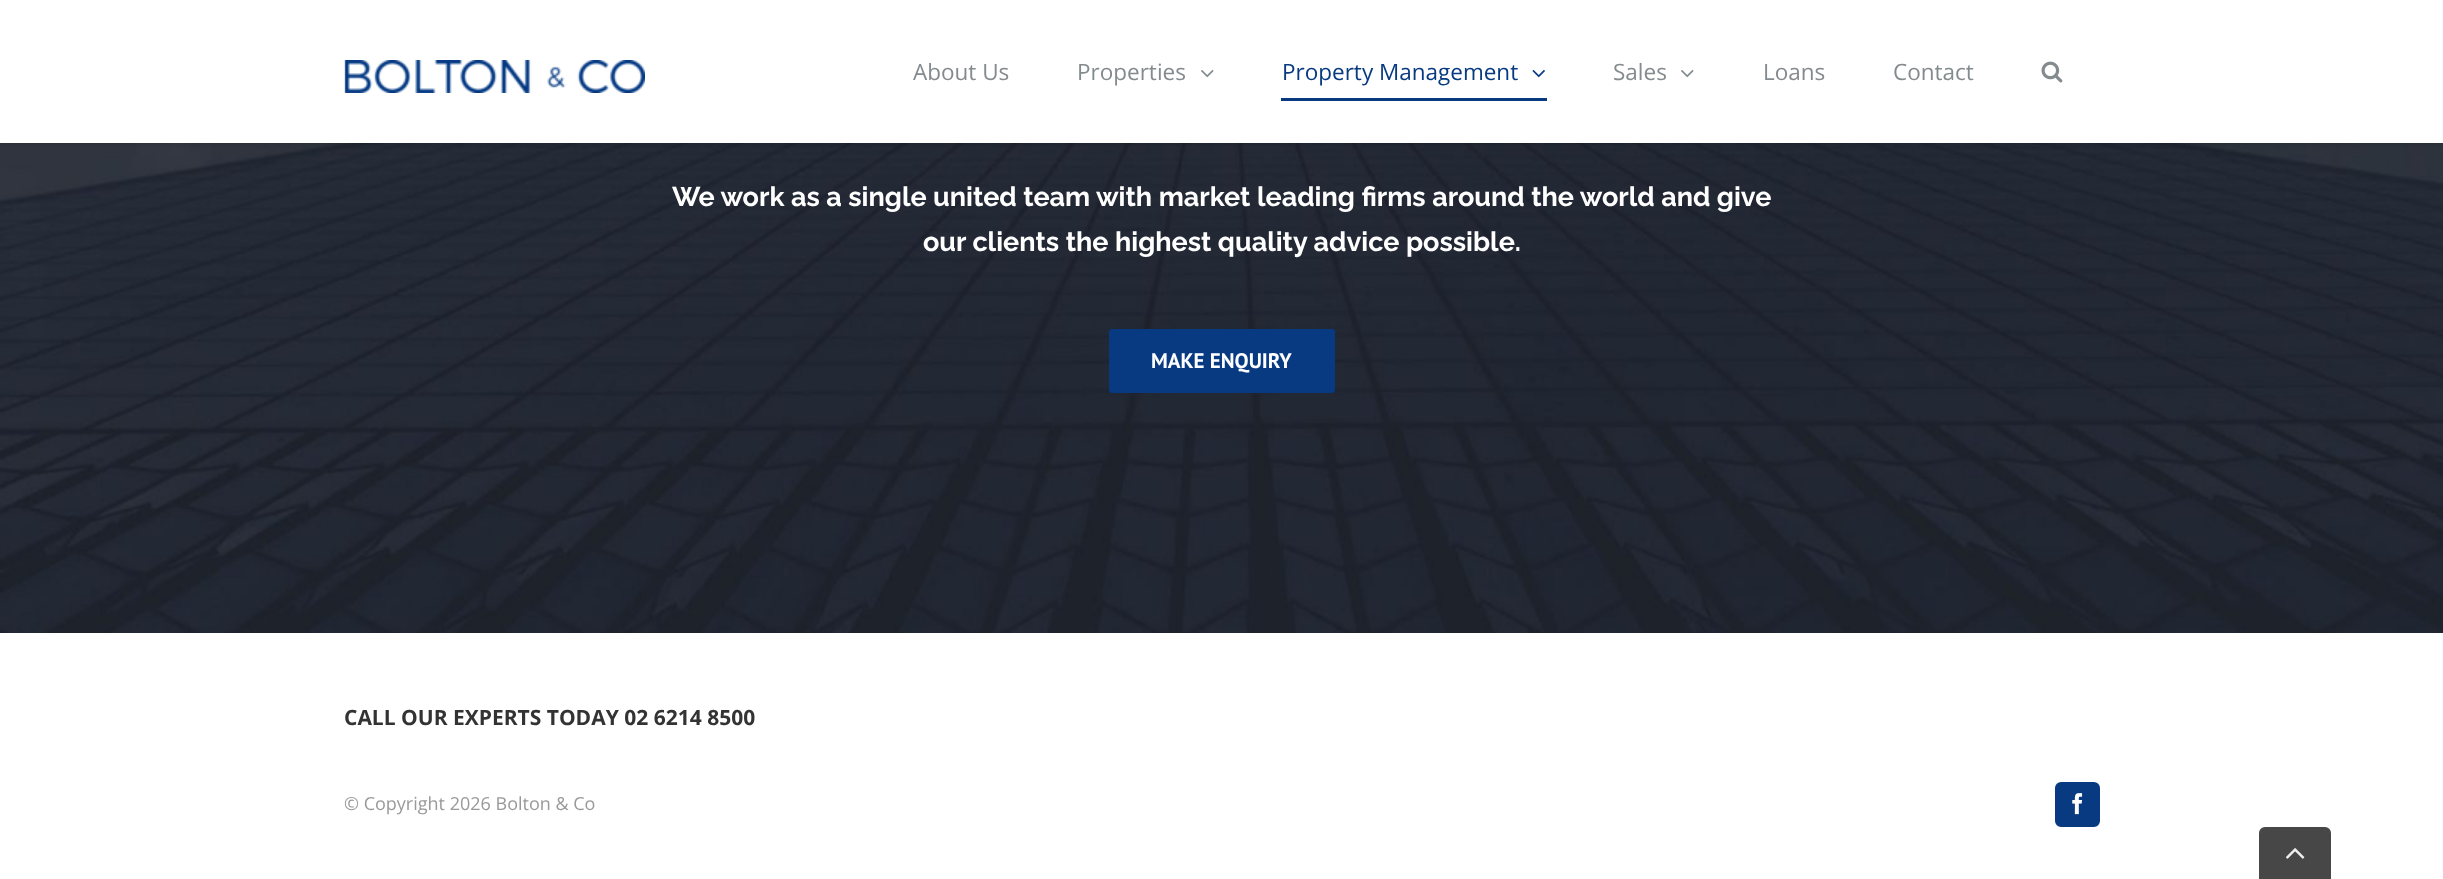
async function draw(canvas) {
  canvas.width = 2443
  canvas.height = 879
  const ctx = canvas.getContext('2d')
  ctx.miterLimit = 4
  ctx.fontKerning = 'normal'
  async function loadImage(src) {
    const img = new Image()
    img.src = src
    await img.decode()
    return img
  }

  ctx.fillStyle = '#fff'
  ctx.fillRect(0, 0, 2443, 879)
  ctx.drawImage(await loadImage('image4.png'), 0, 143, 2443, 490)
  ctx.fillStyle = '#0000001f'
  ctx.filter = 'blur(2px)'
  ctx.beginPath()
  ctx.rect(0, 2, 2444, 142)
  ctx.fill()
  ctx.filter = 'none'
  ctx.fillStyle = '#fff'
  ctx.fillRect(0, 0, 2443, 143)
  ctx.drawImage(await loadImage('image0.png'), 344, 60, 301, 33)
  ctx.font = '22.5px Open Sans'
  ctx.fillStyle = '#848b8e'
  ctx.fillText('About Us', 913, 80)
  ctx.fillText('Properties', 1077, 80)
  ctx.drawImage(await loadImage('image1.png'), 1201, 70, 13, 8)
  ctx.fillStyle = '#083a81'
  ctx.fillText('Property Management', 1282, 80)
  ctx.drawImage(await loadImage('image2.png'), 1532, 70, 13, 8)
  ctx.fillRect(1281, 98, 266, 3)
  ctx.fillStyle = '#848b8e'
  ctx.fillText('Sales', 1613, 80)
  ctx.drawImage(await loadImage('image1.png'), 1681, 70, 13, 8)
  ctx.fillText('Loans', 1763, 80)
  ctx.fillText('Contact', 1893, 80)
  ctx.drawImage(await loadImage('image3.png'), 2041, 61, 22, 22)
  ctx.font = '100 27px Raleway'
  ctx.fillStyle = '#fff'
  ctx.fillText('We work as a single united team with market leading firms around the world and give', 672, 206)
  ctx.fillText('our clients the highest quality advice possible.', 923, 251)
  ctx.fillStyle = '#083a81'
  ctx.beginPath()
  ctx.roundRect(1109, 329, 226, 64, 3)
  ctx.fill()
  ctx.font = 'bold 21px PT Sans'
  ctx.fillStyle = '#fff'
  ctx.fillText('MAKE ENQUIRY', 1151, 368)
  ctx.font = 'bold 21px Open Sans'
  ctx.fillStyle = '#333'
  ctx.fillText('CALL OUR EXPERTS TODAY 02 6214 8500', 344, 725)
  ctx.font = '18px Open Sans'
  ctx.fillStyle = '#999'
  ctx.fillText('© Copyright 2026 Bolton & Co', 344, 810)
  ctx.fillStyle = '#083a81'
  ctx.beginPath()
  ctx.roundRect(2056, 783, 43, 43, 5)
  ctx.fill()
  ctx.strokeStyle = '#083a81'
  ctx.lineWidth = 2
  ctx.stroke()
  ctx.drawImage(await loadImage('image5.png'), 2072, 793, 11, 22)
  ctx.fillStyle = '#474747'
  ctx.beginPath()
  ctx.roundRect(2259, 827, 72, 52, [6, 6, 0, 0])
  ctx.fill()
  ctx.drawImage(await loadImage('image6.png'), 2286, 848, 19, 11)
}

draw(document.querySelector('canvas'))
